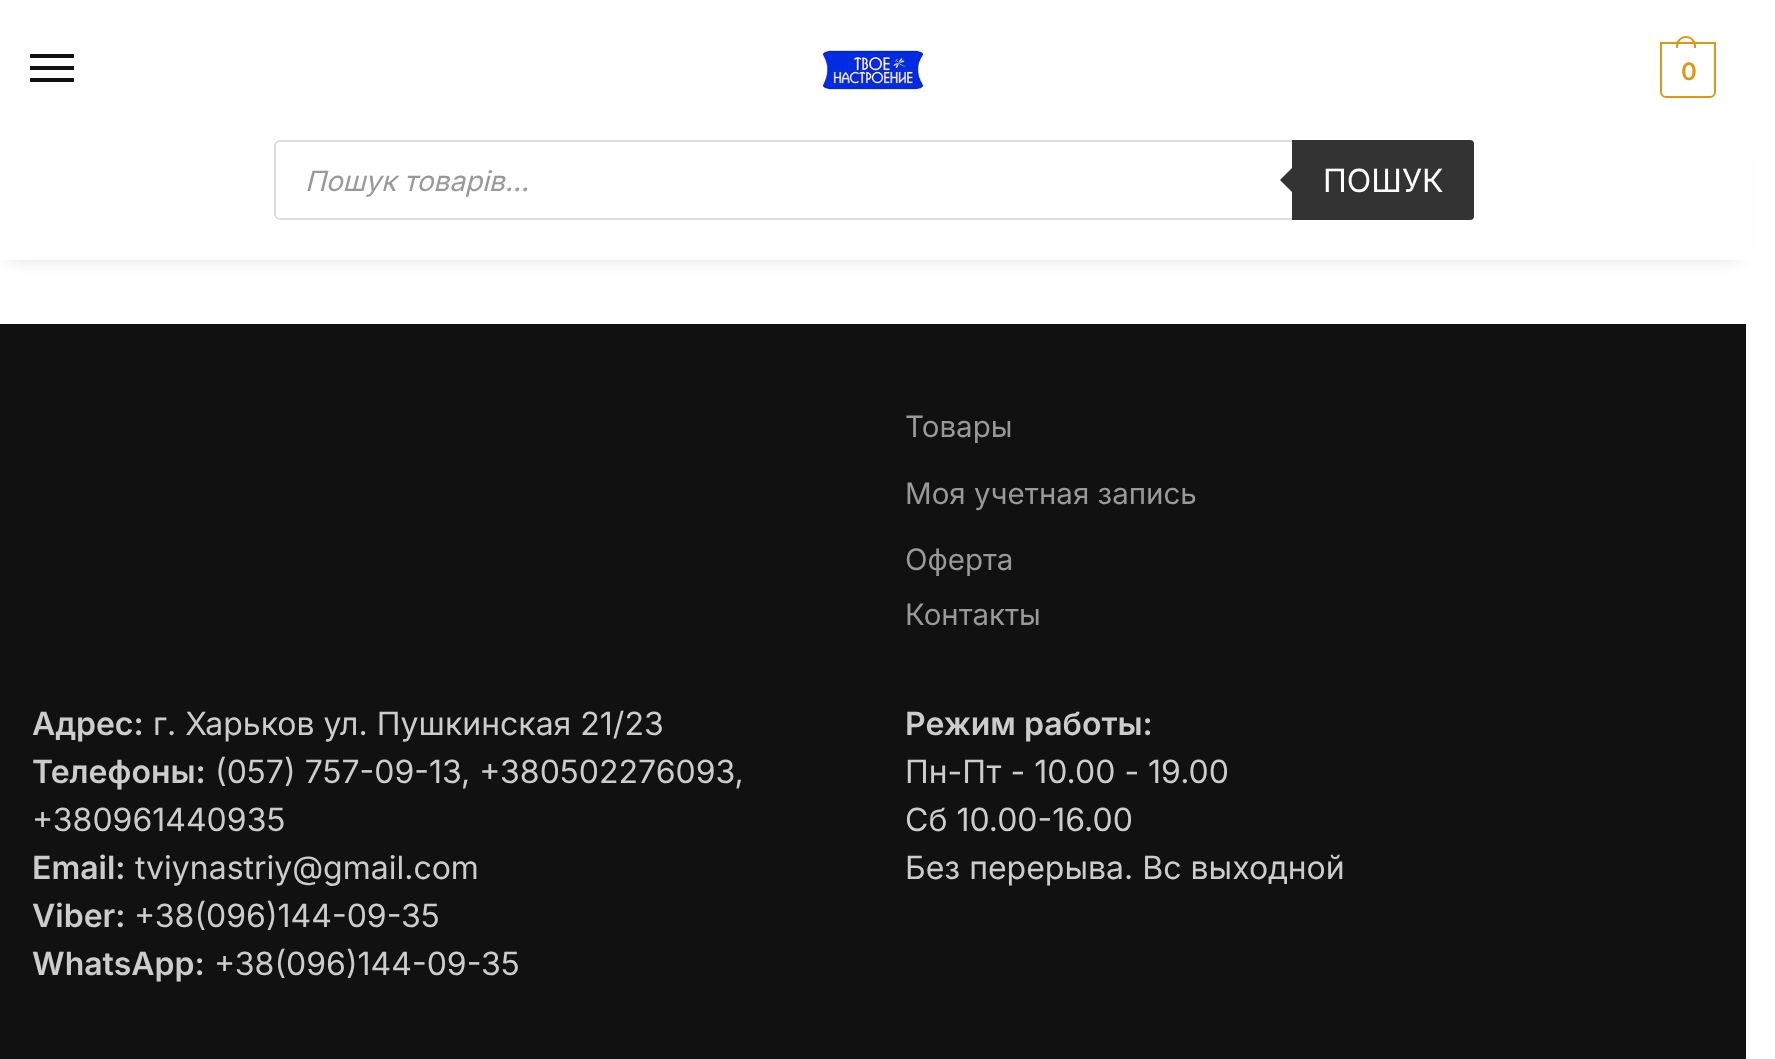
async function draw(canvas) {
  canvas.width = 1775
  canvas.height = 1059
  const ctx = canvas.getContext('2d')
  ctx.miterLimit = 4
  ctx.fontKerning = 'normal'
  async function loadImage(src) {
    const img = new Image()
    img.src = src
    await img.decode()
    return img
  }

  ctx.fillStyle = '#fff'
  ctx.fillRect(0, 0, 1775, 1059)
  ctx.fillStyle = '#111'
  ctx.fillRect(30, 54, 44, 4)
  ctx.fillRect(30, 66, 44, 4)
  ctx.fillRect(30, 78, 44, 4)
  ctx.drawImage(await loadImage('image0.png'), 820, 48, 106, 44)
  ctx.beginPath()
  ctx.roundRect(1661, 43, 54, 54, [0, 0, 5, 5])
  ctx.strokeStyle = '#dc9814'
  ctx.lineWidth = 2
  ctx.stroke()
  ctx.fillStyle = '#dc9814'
  ctx.beginPath()
  ctx.moveTo(1686, 36)
  ctx.bezierCurveTo(1691.5, 36, 1696, 40.5, 1696, 46)
  ctx.lineTo(1696, 48)
  ctx.lineTo(1676, 48)
  ctx.lineTo(1676, 46)
  ctx.bezierCurveTo(1676, 40.5, 1680.5, 36, 1686, 36)
  ctx.closePath()
  ctx.moveTo(1686, 38)
  ctx.bezierCurveTo(1692, 38, 1694, 43, 1694, 48)
  ctx.lineTo(1678, 48)
  ctx.bezierCurveTo(1678, 43, 1680, 38, 1686, 38)
  ctx.closePath()
  ctx.fill('evenodd')
  ctx.letterSpacing = '-1px'
  ctx.font = '600 24px Inter'
  ctx.fillText('0', 1681, 80)
  ctx.fillStyle = '#0000002e'
  ctx.filter = 'blur(10px)'
  ctx.beginPath()
  ctx.rect(10, 156, 1726, 100)
  ctx.fill()
  ctx.filter = 'none'
  ctx.fillStyle = '#fff'
  ctx.fillRect(0, 140, 1746, 120)
  ctx.beginPath()
  ctx.roundRect(275, 141, 1198, 78, 5)
  ctx.strokeStyle = '#ddd'
  ctx.stroke()
  ctx.letterSpacing = '0px'
  ctx.font = 'italic 28px Inter'
  ctx.fillStyle = '#999'
  ctx.fillText('Пошук товарів...', 305, 191)
  ctx.fillStyle = '#333'
  ctx.beginPath()
  ctx.roundRect(1292, 140, 182, 80, [0, 4, 4, 0])
  ctx.fill()
  ctx.beginPath()
  ctx.moveTo(1296, 164)
  ctx.lineTo(1296, 196)
  ctx.lineTo(1280, 180)
  ctx.closePath()
  ctx.fill()
  ctx.font = '32px Inter'
  ctx.fillStyle = '#fff'
  ctx.fillText('ПОШУК', 1323, 192)
  ctx.fillRect(1746, 153, 6, 106)
  ctx.fillStyle = '#111'
  ctx.fillRect(0, 324, 1746, 735)
  ctx.font = '29.5px Inter'
  ctx.fillStyle = '#999'
  ctx.fillText('Товары', 905, 437)
  ctx.fillText('Моя учетная запись', 905, 504)
  ctx.fillText('Оферта', 905, 570)
  ctx.fillText('Контакты', 905, 625)
  ctx.font = '600 32px Inter'
  ctx.fillStyle = '#ccc'
  ctx.fillText('Адрес:', 32, 735)
  ctx.font = '32px Inter'
  ctx.fillText('г. Харьков ул. Пушкинская 21/23', 153, 735)
  ctx.font = '600 32px Inter'
  ctx.fillText('Телефоны:', 32, 783)
  ctx.font = '32px Inter'
  ctx.fillText('(057) 757-09-13, +380502276093,', 215, 783)
  ctx.fillText('+380961440935', 32, 831)
  ctx.font = '600 32px Inter'
  ctx.fillText('Email:', 32, 879)
  ctx.font = '32px Inter'
  ctx.fillText('tviynastriy@gmail.com', 135, 879)
  ctx.font = '600 32px Inter'
  ctx.fillText('Viber:', 32, 927)
  ctx.font = '32px Inter'
  ctx.fillText('+38(096)144-09-35', 134, 927)
  ctx.font = '600 32px Inter'
  ctx.fillText('WhatsApp:', 32, 975)
  ctx.font = '32px Inter'
  ctx.fillText('+38(096)144-09-35', 214, 975)
  ctx.font = '600 32px Inter'
  ctx.fillText('Режим работы:', 905, 735)
  ctx.font = '32px Inter'
  ctx.fillText('Пн-Пт - 10.00 - 19.00', 905, 783)
  ctx.fillText('Сб 10.00-16.00', 905, 831)
  ctx.fillText('Без перерыва. Вс выходной', 905, 879)
}

draw(document.querySelector('canvas'))
